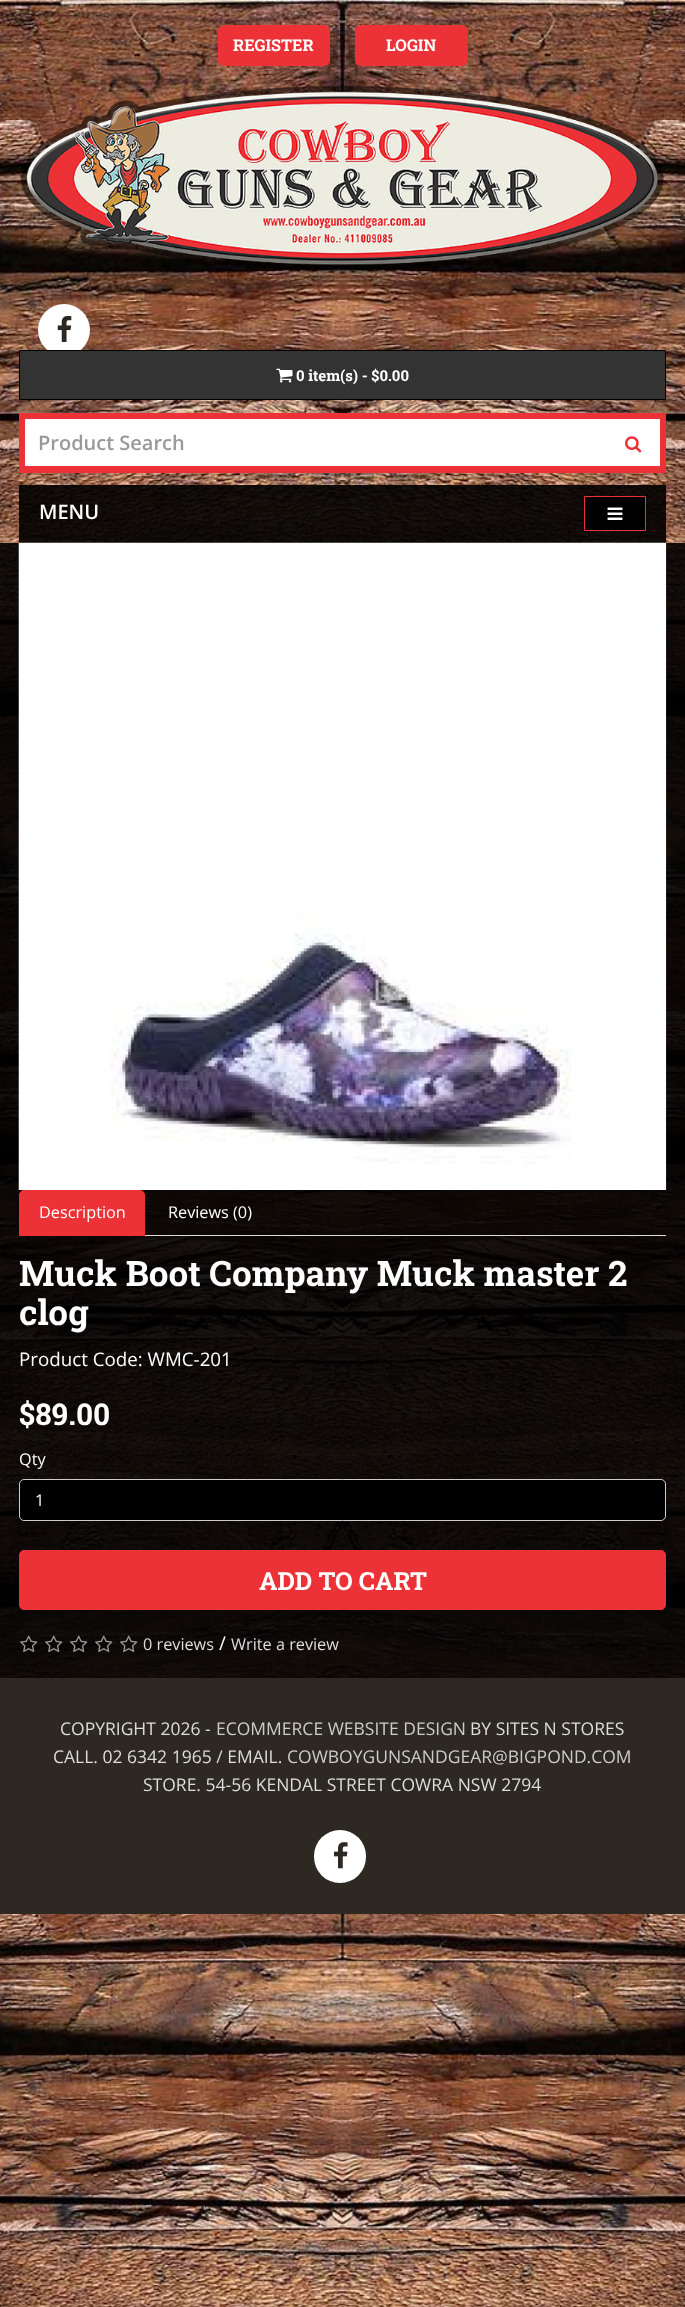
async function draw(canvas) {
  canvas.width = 685
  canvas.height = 2307
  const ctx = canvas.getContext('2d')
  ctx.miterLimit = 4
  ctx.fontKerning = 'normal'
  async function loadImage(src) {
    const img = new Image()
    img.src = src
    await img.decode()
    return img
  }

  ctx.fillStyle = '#fff'
  ctx.fillRect(0, 0, 685, 2307)
  ctx.drawImage(await loadImage('image0.png'), 0, 0, 685, 2307)
  ctx.fillStyle = '#ec3237'
  ctx.beginPath()
  ctx.roundRect(218, 25, 112, 41, 6)
  ctx.fill()
  ctx.font = 'bold 16.25px Roboto Slab'
  ctx.fillStyle = '#fff'
  ctx.fillText('REGISTER', 233, 51)
  ctx.fillStyle = '#ec3237'
  ctx.beginPath()
  ctx.roundRect(355, 25, 113, 41, 6)
  ctx.fill()
  ctx.fillStyle = '#fff'
  ctx.fillText('LOGIN', 386, 51)
  ctx.drawImage(await loadImage('image1.png'), 20, 86, 644, 185)
  ctx.beginPath()
  ctx.arc(64, 330, 26, 0, 2 * Math.PI)
  ctx.fill()
  ctx.drawImage(await loadImage('image2.png'), 57, 315, 15, 27)
  ctx.fillStyle = '#333'
  ctx.beginPath()
  ctx.rect(19.5, 350.5, 646, 49)
  ctx.fill()
  ctx.strokeStyle = '#000'
  ctx.stroke()
  ctx.drawImage(await loadImage('image3.png'), 276, 368, 17, 15)
  ctx.font = 'bold 15px Roboto Slab'
  ctx.fillStyle = '#fff'
  ctx.fillText('0 item(s) - $0.00', 296, 381)
  ctx.fillStyle = '#ec3237'
  ctx.fillRect(19, 413, 647, 60)
  ctx.fillStyle = '#fff'
  ctx.fillRect(25, 419, 635, 47)
  ctx.drawImage(await loadImage('image4.png'), 625, 436, 17, 17)
  ctx.font = '600 20px Open Sans'
  ctx.fillStyle = '#999'
  ctx.fillText('Product Search', 38, 450)
  ctx.fillStyle = '#000000e6'
  ctx.fillRect(19, 485, 647, 58)
  ctx.fillStyle = '#fff'
  ctx.fillText('MENU', 39, 519)
  ctx.fillStyle = '#000000e6'
  ctx.beginPath()
  ctx.rect(584.5, 496.5, 61, 34)
  ctx.fill()
  ctx.strokeStyle = '#ec3237'
  ctx.stroke()
  ctx.drawImage(await loadImage('image5.png'), 607, 507, 16, 13)
  ctx.fillRect(0, 543, 685, 1135)
  ctx.drawImage(await loadImage('image6.png'), 18, 542, 649, 648)
  ctx.fillStyle = '#ddd'
  ctx.fillRect(145, 1235, 521, 1)
  ctx.fillStyle = '#ec3237'
  ctx.beginPath()
  ctx.roundRect(19.5, 1190.5, 125, 45, [4.5, 4.5, 0, 0])
  ctx.fill()
  ctx.stroke()
  ctx.font = '16.25px Open Sans'
  ctx.fillStyle = '#fff'
  ctx.fillText('Description', 39, 1218)
  ctx.fillText('Reviews (0)', 168, 1218)
  ctx.font = 'bold 35px Roboto Slab'
  ctx.fillText('Muck Boot Company Muck master 2', 19, 1286)
  ctx.fillText('clog', 19, 1325)
  ctx.font = '18.75px Open Sans'
  ctx.fillText('Product Code: WMC-201', 19, 1366)
  ctx.font = 'bold 30px Roboto Slab'
  ctx.fillText('$89.00', 19, 1425)
  ctx.font = '16.25px Open Sans'
  ctx.fillText('Qty', 19, 1465)
  ctx.fillStyle = '#000'
  ctx.beginPath()
  ctx.roundRect(19.5, 1479.5, 646, 41, 4.5)
  ctx.fill()
  ctx.strokeStyle = '#ccc'
  ctx.stroke()
  ctx.fillStyle = '#fff'
  ctx.fillText('1', 35, 1506)
  ctx.fillStyle = '#ec3237'
  ctx.beginPath()
  ctx.roundRect(19.5, 1550.5, 646, 59, 4.5)
  ctx.fill()
  ctx.strokeStyle = '#ec3237'
  ctx.stroke()
  ctx.font = 'bold 25px Roboto Slab'
  ctx.fillStyle = '#fff'
  ctx.fillText('ADD TO CART', 259, 1590)
  ctx.drawImage(await loadImage('image7.png'), 20, 1635, 18, 18)
  ctx.drawImage(await loadImage('image8.png'), 45, 1635, 18, 18)
  ctx.drawImage(await loadImage('image9.png'), 70, 1635, 18, 18)
  ctx.drawImage(await loadImage('image10.png'), 95, 1635, 18, 18)
  ctx.drawImage(await loadImage('image11.png'), 120, 1635, 18, 18)
  ctx.font = '16.25px Open Sans'
  ctx.fillStyle = '#ddd'
  ctx.fillText('0 reviews', 143, 1650)
  ctx.font = '18.75px Open Sans'
  ctx.fillStyle = '#fff'
  ctx.fillText('/', 219, 1650)
  ctx.font = '16.25px Open Sans'
  ctx.fillStyle = '#ddd'
  ctx.fillText('Write a review', 231, 1650)
  ctx.fillStyle = '#2e2823'
  ctx.fillRect(0, 1678, 685, 236)
  ctx.font = '17.5px Open Sans'
  ctx.fillStyle = '#ddd'
  ctx.fillText('COPYRIGHT 2026 -', 60, 1735)
  ctx.fillStyle = '#ccc'
  ctx.fillText('ECOMMERCE WEBSITE DESIGN', 216, 1735)
  ctx.fillStyle = '#ddd'
  ctx.fillText('BY SITES N STORES', 470, 1735)
  ctx.fillText('CALL. 02 6342 1965 / EMAIL.', 53, 1763)
  ctx.fillStyle = '#ccc'
  ctx.fillText('COWBOYGUNSANDGEAR@BIGPOND.COM', 287, 1763)
  ctx.fillStyle = '#ddd'
  ctx.fillText('STORE. 54-56 KENDAL STREET COWRA NSW 2794', 143, 1791)
  ctx.fillStyle = '#fff'
  ctx.beginPath()
  ctx.roundRect(314, 1830, 52, 53, 26)
  ctx.fill()
  ctx.drawImage(await loadImage('image12.png'), 334, 1842, 14, 27)
}

draw(document.querySelector('canvas'))
